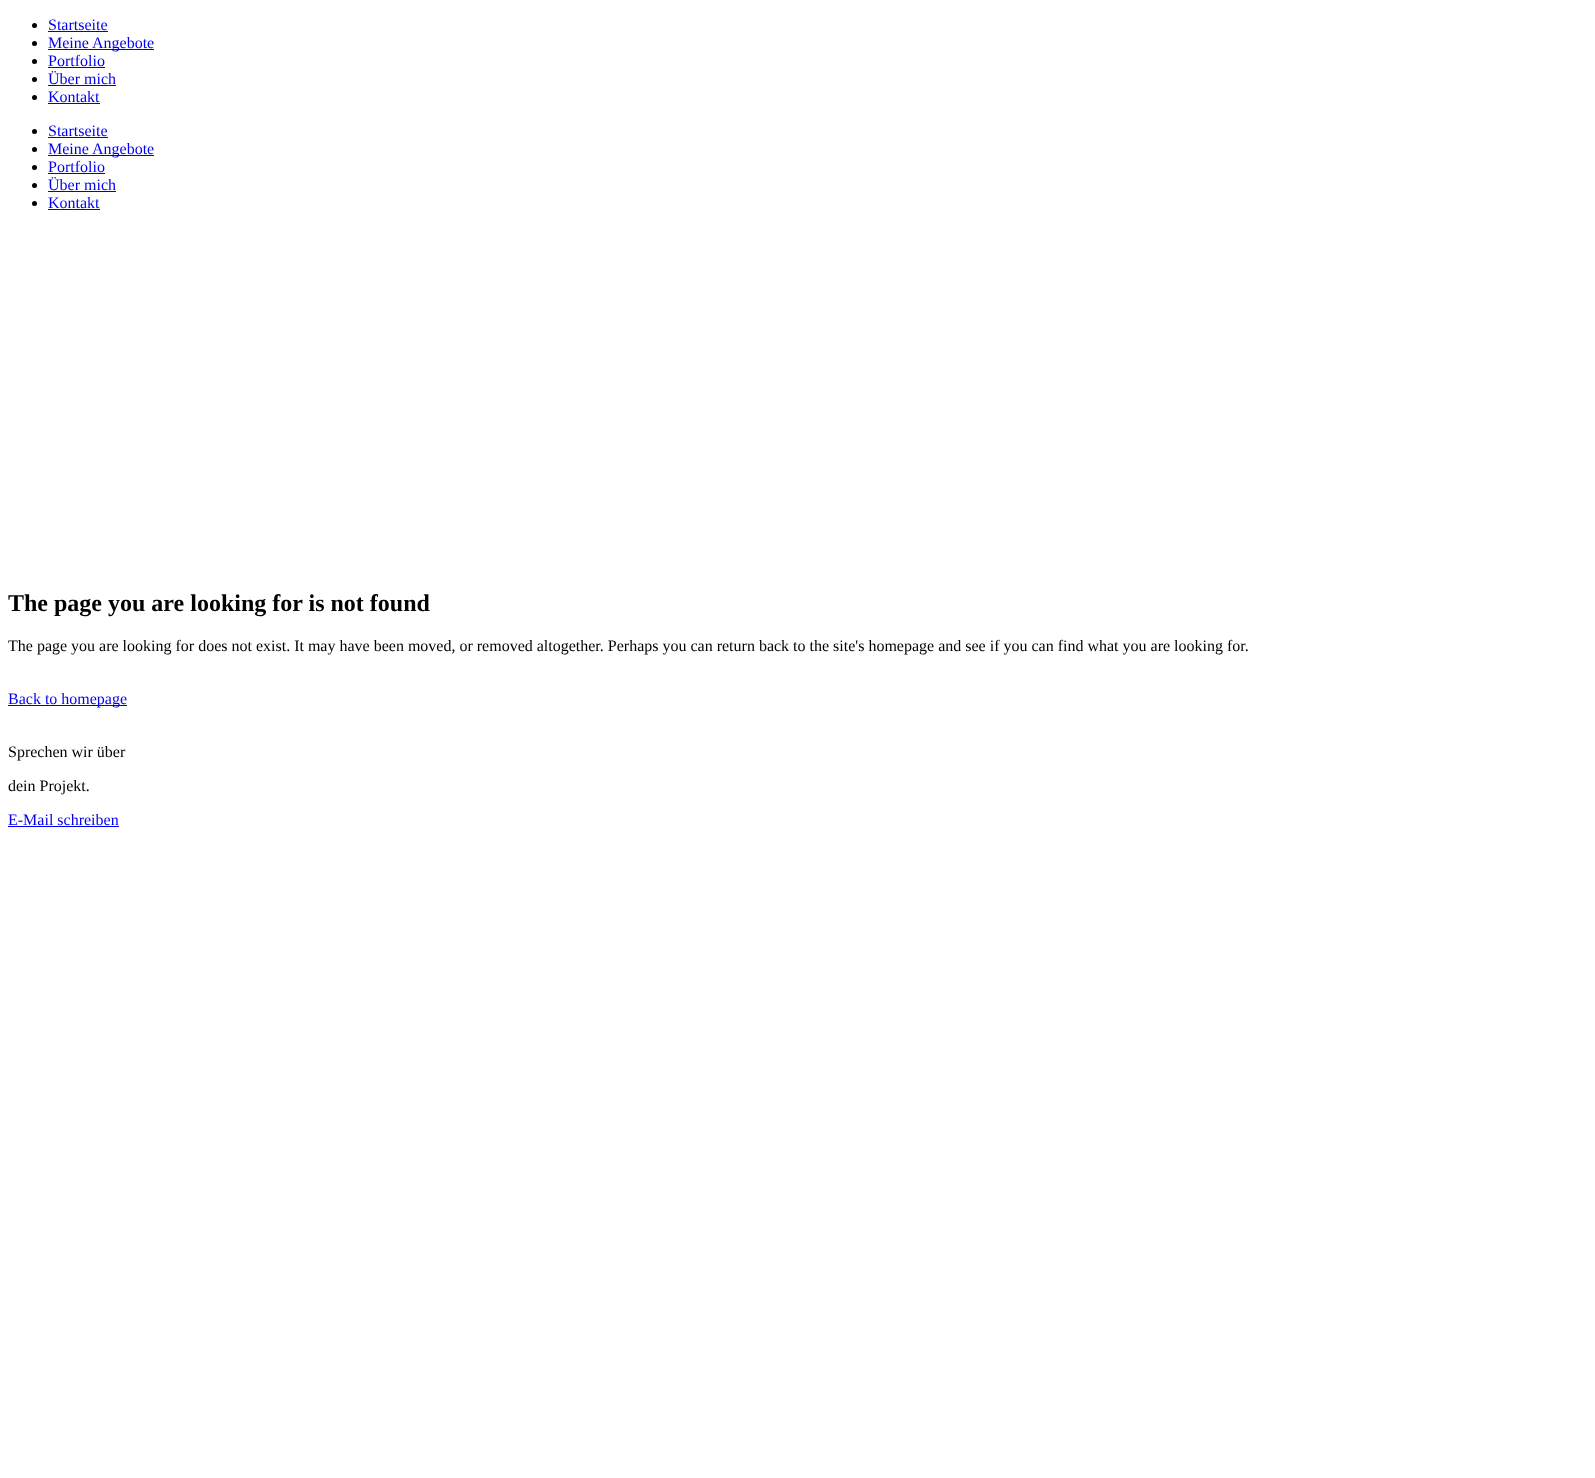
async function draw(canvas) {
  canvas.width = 1595
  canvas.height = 1478
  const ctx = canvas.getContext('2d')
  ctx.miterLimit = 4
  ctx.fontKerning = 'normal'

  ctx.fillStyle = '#fff'
  ctx.fillRect(0, 0, 1595, 1478)
  ctx.fillStyle = '#000'
  ctx.beginPath()
  ctx.arc(34.5, 25.5, 2.5, 0, 2 * Math.PI)
  ctx.fill()
  ctx.font = '16px Liberation Serif'
  ctx.fillStyle = '#00e'
  ctx.fillText('Startseite', 48, 30)
  ctx.fillRect(48, 31, 60, 1)
  ctx.fillStyle = '#000'
  ctx.beginPath()
  ctx.arc(34.5, 43.5, 2.5, 0, 2 * Math.PI)
  ctx.fill()
  ctx.fillStyle = '#00e'
  ctx.fillRect(48, 49, 106, 1)
  ctx.fillText('Meine Angebote', 48, 48)
  ctx.fillStyle = '#000'
  ctx.beginPath()
  ctx.arc(34.5, 61.5, 2.5, 0, 2 * Math.PI)
  ctx.fill()
  ctx.fillStyle = '#00e'
  ctx.fillText('Portfolio', 48, 66)
  ctx.fillRect(48, 67, 57, 1)
  ctx.fillStyle = '#000'
  ctx.beginPath()
  ctx.arc(34.5, 79.5, 2.5, 0, 2 * Math.PI)
  ctx.fill()
  ctx.fillStyle = '#00e'
  ctx.fillText('Über mich', 48, 84)
  ctx.fillRect(48, 85, 68, 1)
  ctx.fillStyle = '#000'
  ctx.beginPath()
  ctx.arc(34.5, 97.5, 2.5, 0, 2 * Math.PI)
  ctx.fill()
  ctx.fillStyle = '#00e'
  ctx.fillText('Kontakt', 48, 102)
  ctx.fillRect(48, 103, 52, 1)
  ctx.fillStyle = '#000'
  ctx.beginPath()
  ctx.arc(34.5, 131.5, 2.5, 0, 2 * Math.PI)
  ctx.fill()
  ctx.fillStyle = '#00e'
  ctx.fillText('Startseite', 48, 136)
  ctx.fillRect(48, 137, 60, 1)
  ctx.fillStyle = '#000'
  ctx.beginPath()
  ctx.arc(34.5, 149.5, 2.5, 0, 2 * Math.PI)
  ctx.fill()
  ctx.fillStyle = '#00e'
  ctx.fillRect(48, 155, 106, 1)
  ctx.fillText('Meine Angebote', 48, 154)
  ctx.fillStyle = '#000'
  ctx.beginPath()
  ctx.arc(34.5, 167.5, 2.5, 0, 2 * Math.PI)
  ctx.fill()
  ctx.fillStyle = '#00e'
  ctx.fillText('Portfolio', 48, 172)
  ctx.fillRect(48, 173, 57, 1)
  ctx.fillStyle = '#000'
  ctx.beginPath()
  ctx.arc(34.5, 185.5, 2.5, 0, 2 * Math.PI)
  ctx.fill()
  ctx.fillStyle = '#00e'
  ctx.fillText('Über mich', 48, 190)
  ctx.fillRect(48, 191, 68, 1)
  ctx.fillStyle = '#000'
  ctx.beginPath()
  ctx.arc(34.5, 203.5, 2.5, 0, 2 * Math.PI)
  ctx.fill()
  ctx.fillStyle = '#00e'
  ctx.fillText('Kontakt', 48, 208)
  ctx.fillRect(48, 209, 52, 1)
  ctx.font = 'bold 24px Liberation Serif'
  ctx.fillStyle = '#000'
  ctx.fillText('The page you are looking for is not found', 8, 611)
  ctx.font = '16px Liberation Serif'
  ctx.fillText('The page you are looking for does not exist. It may have been moved, or removed altogether. Perhaps you can return back to the site\'s homepage and see if you can find what you are looking for.', 8, 651)
  ctx.fillStyle = '#00e'
  ctx.fillRect(8, 705, 119, 1)
  ctx.fillText('Back to homepage', 8, 704)
  ctx.fillStyle = '#000'
  ctx.fillText('Sprechen wir über', 8, 757)
  ctx.fillText('dein Projekt.', 8, 791)
  ctx.fillStyle = '#00e'
  ctx.fillText('E-Mail schreiben', 8, 825)
  ctx.fillRect(8, 826, 111, 1)
}

draw(document.querySelector('canvas'))
